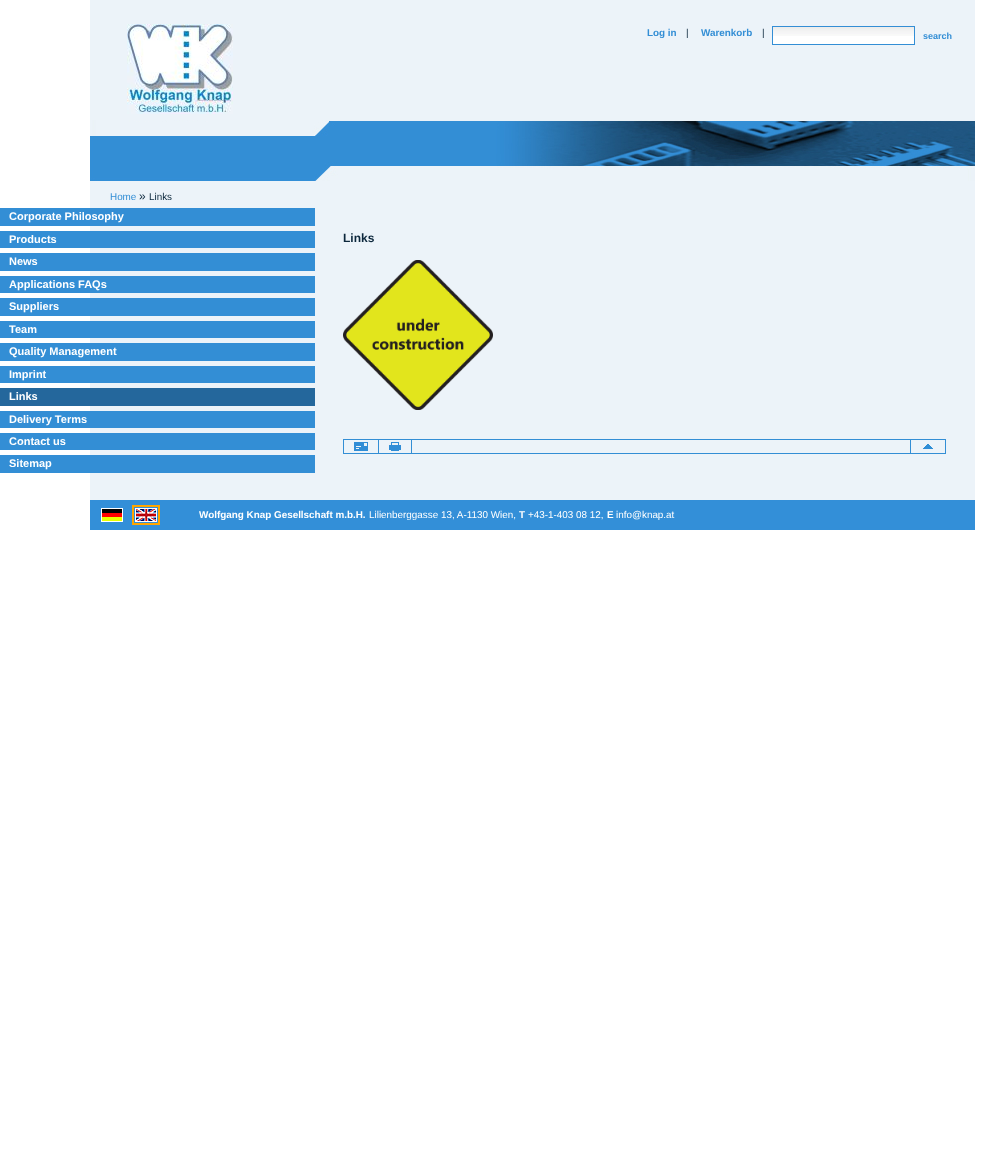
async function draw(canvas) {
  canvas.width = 1001
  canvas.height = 1158
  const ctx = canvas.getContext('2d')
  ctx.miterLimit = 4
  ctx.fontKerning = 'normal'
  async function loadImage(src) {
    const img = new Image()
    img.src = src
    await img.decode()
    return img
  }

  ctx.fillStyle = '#fff'
  ctx.fillRect(0, 0, 1001, 1158)
  ctx.fillStyle = '#ecf3f9'
  ctx.fillRect(90, 0, 885, 500)
  ctx.drawImage(await loadImage('image0.png'), 127, 24, 106, 90)
  ctx.font = 'bold 9.9px Liberation Sans'
  ctx.fillStyle = '#338ed5'
  ctx.fillText('Log in', 647, 36)
  ctx.font = '9.9px Liberation Sans'
  ctx.fillStyle = '#0c273c'
  ctx.fillText('|', 686, 36)
  ctx.font = 'bold 9.9px Liberation Sans'
  ctx.fillStyle = '#338ed5'
  ctx.fillText('Warenkorb', 701, 36)
  ctx.font = '9.9px Liberation Sans'
  ctx.fillStyle = '#0c273c'
  ctx.fillText('|', 762, 36)
  ctx.fillStyle = '#fff'
  ctx.fillRect(773, 36, 141, 8)
  ctx.drawImage(await loadImage('image1.png'), 773, 27, 141, 9)
  ctx.strokeStyle = '#338ed5'
  ctx.strokeRect(772.5, 26.5, 142, 18)
  ctx.font = 'bold 9px Liberation Sans'
  ctx.fillStyle = '#338ed5'
  ctx.fillText('search', 923, 39)
  ctx.drawImage(await loadImage('image2.png'), 90, 120, 885, 61)
  ctx.font = '9.9px Liberation Sans'
  ctx.fillText('Home', 110, 200)
  ctx.font = '12px Liberation Sans'
  ctx.fillStyle = '#0c273c'
  ctx.fillText('»', 139, 200)
  ctx.font = '9.9px Liberation Sans'
  ctx.fillText('Links', 149, 200)
  ctx.fillStyle = '#338ed5'
  ctx.fillRect(0, 208, 315, 18)
  ctx.font = 'bold 11px Liberation Sans'
  ctx.fillStyle = '#fff'
  ctx.fillText('Corporate Philosophy', 9, 220)
  ctx.fillStyle = '#338ed5'
  ctx.fillRect(0, 231, 315, 17)
  ctx.fillStyle = '#fff'
  ctx.fillText('Products', 9, 243)
  ctx.fillStyle = '#338ed5'
  ctx.fillRect(0, 253, 315, 18)
  ctx.fillStyle = '#fff'
  ctx.fillText('News', 9, 265)
  ctx.fillStyle = '#338ed5'
  ctx.fillRect(0, 276, 315, 17)
  ctx.fillStyle = '#fff'
  ctx.fillText('Applications FAQs', 9, 288)
  ctx.fillStyle = '#338ed5'
  ctx.fillRect(0, 298, 315, 18)
  ctx.fillStyle = '#fff'
  ctx.fillText('Suppliers', 9, 310)
  ctx.fillStyle = '#338ed5'
  ctx.fillRect(0, 321, 315, 17)
  ctx.fillStyle = '#fff'
  ctx.fillText('Team', 9, 333)
  ctx.fillStyle = '#338ed5'
  ctx.fillRect(0, 343, 315, 18)
  ctx.fillStyle = '#fff'
  ctx.fillText('Quality Management', 9, 355)
  ctx.fillStyle = '#338ed5'
  ctx.fillRect(0, 366, 315, 17)
  ctx.fillStyle = '#fff'
  ctx.fillText('Imprint', 9, 378)
  ctx.fillStyle = '#24679c'
  ctx.fillRect(0, 388, 315, 18)
  ctx.fillStyle = '#fff'
  ctx.fillText('Links', 9, 400)
  ctx.fillStyle = '#338ed5'
  ctx.fillRect(0, 411, 315, 17)
  ctx.fillStyle = '#fff'
  ctx.fillText('Delivery Terms', 9, 423)
  ctx.fillStyle = '#338ed5'
  ctx.fillRect(0, 433, 315, 17)
  ctx.fillStyle = '#fff'
  ctx.fillText('Contact us', 9, 445)
  ctx.fillStyle = '#338ed5'
  ctx.fillRect(0, 455, 315, 18)
  ctx.fillStyle = '#fff'
  ctx.fillText('Sitemap', 9, 467)
  ctx.font = 'bold 12px Liberation Sans'
  ctx.fillStyle = '#0c273c'
  ctx.fillText('Links', 343, 242)
  ctx.drawImage(await loadImage('image3.png'), 343, 260, 150, 150)
  ctx.fillStyle = '#338ed5'
  ctx.fillRect(343, 439, 603, 1)
  ctx.fillRect(343, 453, 603, 1)
  ctx.fillRect(343, 439, 1, 15)
  ctx.fillRect(378, 439, 1, 15)
  ctx.drawImage(await loadImage('image4.png'), 354, 442, 14, 9)
  ctx.fillRect(411, 439, 1, 15)
  ctx.drawImage(await loadImage('image5.png'), 389, 442, 12, 9)
  ctx.fillRect(910, 439, 1, 15)
  ctx.fillRect(945, 439, 1, 15)
  ctx.drawImage(await loadImage('image6.png'), 923, 444, 10, 5)
  ctx.fillStyle = '#338fd8'
  ctx.fillRect(90, 500, 885, 30)
  ctx.drawImage(await loadImage('image7.png'), 101, 508, 22, 14)
  ctx.strokeStyle = '#ffa500'
  ctx.lineWidth = 2
  ctx.strokeRect(133, 506, 26, 18)
  ctx.drawImage(await loadImage('image8.png'), 135, 508, 22, 14)
  ctx.font = 'bold 9.9px Liberation Sans'
  ctx.fillStyle = '#fff'
  ctx.fillText('Wolfgang Knap Gesellschaft m.b.H.', 199, 518)
  ctx.font = '9.9px Liberation Sans'
  ctx.fillText('Lilienberggasse 13, A-1130 Wien,', 369, 518)
  ctx.font = 'bold 9.9px Liberation Sans'
  ctx.fillText('T', 519, 518)
  ctx.font = '9.9px Liberation Sans'
  ctx.fillText('+43-1-403 08 12,', 528, 518)
  ctx.font = 'bold 9.9px Liberation Sans'
  ctx.fillText('E', 607, 518)
  ctx.font = '9.9px Liberation Sans'
  ctx.fillText('info@knap.at', 616, 518)
}

draw(document.querySelector('canvas'))
